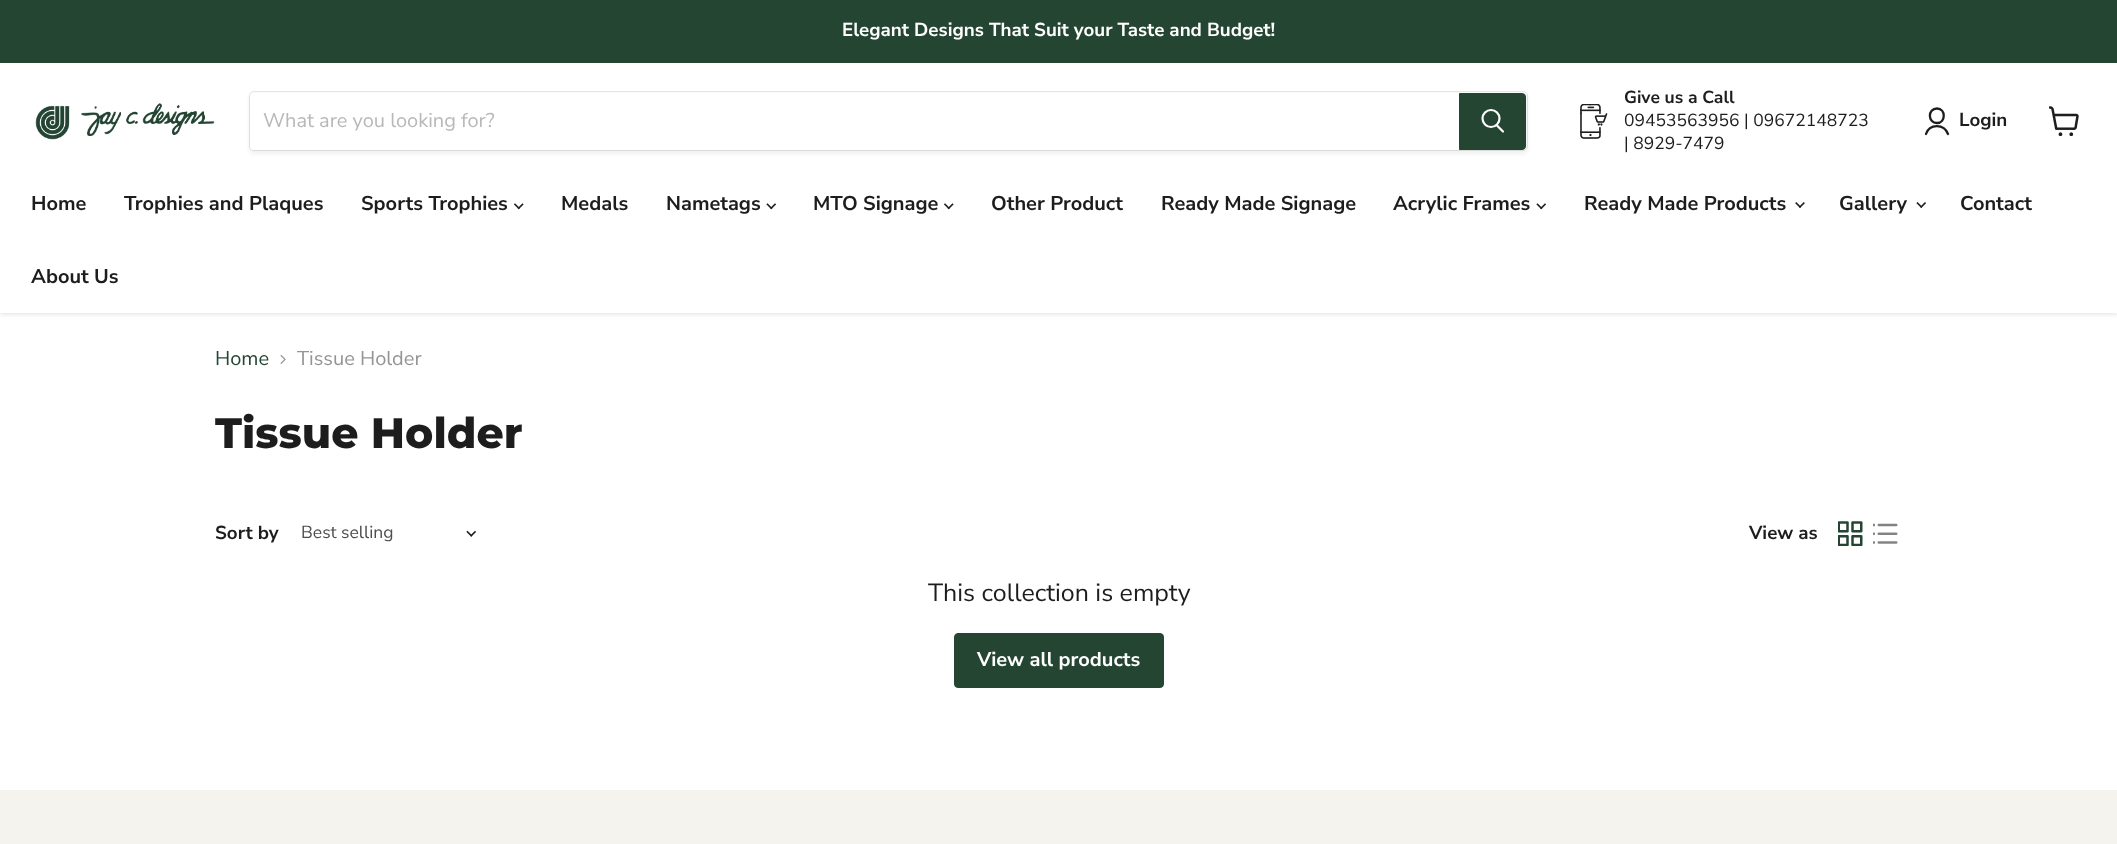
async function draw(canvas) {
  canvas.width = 2117
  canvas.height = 844
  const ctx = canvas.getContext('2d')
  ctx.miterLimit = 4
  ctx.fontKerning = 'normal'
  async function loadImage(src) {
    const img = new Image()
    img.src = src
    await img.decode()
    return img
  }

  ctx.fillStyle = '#fff'
  ctx.fillRect(0, 0, 2117, 844)
  ctx.fillStyle = '#80808040'
  ctx.filter = 'blur(2.5px)'
  ctx.beginPath()
  ctx.rect(0, 64, 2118, 250)
  ctx.fill()
  ctx.filter = 'none'
  ctx.fillStyle = '#254533'
  ctx.fillRect(0, 0, 2117, 63)
  ctx.font = 'bold 18.75px Nunito Sans'
  ctx.fillStyle = '#fff'
  ctx.fillText('Elegant Designs That Suit your Taste and Budget!', 842, 36)
  ctx.fillRect(0, 63, 2117, 250)
  ctx.drawImage(await loadImage('image0.png'), 35, 103, 180, 37)
  ctx.fillStyle = '#8080801c'
  ctx.filter = 'blur(2px)'
  ctx.beginPath()
  ctx.roundRect(249, 94, 1279, 60, 5)
  ctx.fill()
  ctx.filter = 'none'
  ctx.beginPath()
  ctx.roundRect(249.5, 91.5, 1278, 59, 4.5)
  ctx.strokeStyle = '#80808033'
  ctx.stroke()
  ctx.fillStyle = '#fff'
  ctx.beginPath()
  ctx.roundRect(250, 93, 1209, 57, [4, 0, 0, 4])
  ctx.fill()
  ctx.font = '20px Nunito Sans'
  ctx.fillStyle = '#b8b8b8'
  ctx.fillText('What are you looking for?', 263, 127)
  ctx.fillStyle = '#254533'
  ctx.beginPath()
  ctx.roundRect(1459.5, 93.5, 66, 56, [0, 3.5, 3.5, 0])
  ctx.fill()
  ctx.strokeStyle = '#254533'
  ctx.stroke()
  ctx.beginPath()
  ctx.moveTo(1503, 131.5)
  ctx.lineTo(1497, 125.5)
  ctx.strokeStyle = '#fff'
  ctx.lineWidth = 2.2
  ctx.lineCap = 'round'
  ctx.stroke()
  ctx.beginPath()
  ctx.arc(1491, 118.5, 8.5, 0, 2 * Math.PI)
  ctx.stroke()
  ctx.drawImage(await loadImage('image1.png'), 1580, 104, 28, 35)
  ctx.font = 'bold 17.5px Nunito Sans'
  ctx.fillStyle = '#1d1d1d'
  ctx.fillText('Give us a Call', 1624, 103)
  ctx.font = '17.5px Nunito Sans'
  ctx.fillText('09453563956 | 09672148723', 1624, 126)
  ctx.fillText('| 8929-7479', 1624, 149)
  ctx.beginPath()
  ctx.moveTo(1937, 123)
  ctx.bezierCurveTo(1946, 123, 1946, 108.5, 1937, 108.5)
  ctx.bezierCurveTo(1927.5, 108.5, 1927.5, 123, 1937, 123)
  ctx.closePath()
  ctx.moveTo(1948, 134)
  ctx.bezierCurveTo(1944, 123.5, 1929.5, 123.5, 1926, 134)
  ctx.strokeStyle = '#1d1d1d'
  ctx.lineWidth = 2.3
  ctx.lineJoin = 'round'
  ctx.stroke()
  ctx.font = 'bold 18.75px Nunito Sans'
  ctx.fillText('Login', 1959, 126)
  ctx.drawImage(await loadImage('image2.png'), 2049, 106, 30, 30)
  ctx.font = 'bold 20px Nunito Sans'
  ctx.fillText('Home', 31, 210)
  ctx.fillText('Trophies and Plaques', 124, 210)
  ctx.fillText('Sports Trophies', 361, 210)
  ctx.drawImage(await loadImage('image3.png'), 514, 203, 10, 7)
  ctx.fillText('Medals', 561, 210)
  ctx.fillText('Nametags', 666, 210)
  ctx.drawImage(await loadImage('image4.png'), 766, 203, 10, 7)
  ctx.fillText('MTO Signage', 813, 210)
  ctx.drawImage(await loadImage('image3.png'), 944, 203, 10, 7)
  ctx.fillText('Other Product', 991, 210)
  ctx.fillText('Ready Made Signage', 1161, 210)
  ctx.fillText('Acrylic Frames', 1393, 210)
  ctx.drawImage(await loadImage('image4.png'), 1536, 203, 10, 7)
  ctx.fillText('Ready Made Products', 1584, 210)
  ctx.drawImage(await loadImage('image5.png'), 1795, 202, 10, 6)
  ctx.fillText('Gallery', 1839, 210)
  ctx.drawImage(await loadImage('image6.png'), 1916, 202, 10, 6)
  ctx.fillText('Contact', 1960, 210)
  ctx.fillText('About Us', 31, 283)
  ctx.font = '20px Nunito Sans'
  ctx.fillStyle = '#254533'
  ctx.fillText('Home', 215, 365)
  ctx.drawImage(await loadImage('image7.png'), 280, 354, 6, 10)
  ctx.fillStyle = '#949494'
  ctx.fillText('Tissue Holder', 297, 365)
  ctx.font = '800 42.5px Montserrat'
  ctx.fillStyle = '#1d1d1d'
  ctx.fillText('Tissue Holder', 215, 448)
  ctx.font = 'bold 18.75px Nunito Sans'
  ctx.fillText('Sort by', 215, 539)
  ctx.font = '17.5px Nunito Sans'
  ctx.fillStyle = '#4d4d4d'
  ctx.fillText('Best selling', 301, 538)
  ctx.drawImage(await loadImage('image8.png'), 466, 530, 10, 7)
  ctx.font = 'bold 18.75px Nunito Sans'
  ctx.fillStyle = '#1d1d1d'
  ctx.fillText('View as', 1749, 539)
  ctx.drawImage(await loadImage('image9.png'), 1838, 521, 25, 25)
  ctx.drawImage(await loadImage('image10.png'), 1873, 523, 25, 21)
  ctx.font = '25px Nunito Sans'
  ctx.fillText('This collection is empty', 928, 601)
  ctx.fillStyle = '#254533'
  ctx.beginPath()
  ctx.roundRect(954.5, 633.5, 209, 54, 3.5)
  ctx.fill()
  ctx.strokeStyle = '#254533'
  ctx.lineWidth = 1
  ctx.lineJoin = 'miter'
  ctx.stroke()
  ctx.font = 'bold 20px Nunito Sans'
  ctx.fillStyle = '#fff'
  ctx.fillText('View all products', 977, 666)
  ctx.fillStyle = '#f5f3ed'
  ctx.fillRect(0, 790, 2117, 54)
}

draw(document.querySelector('canvas'))
